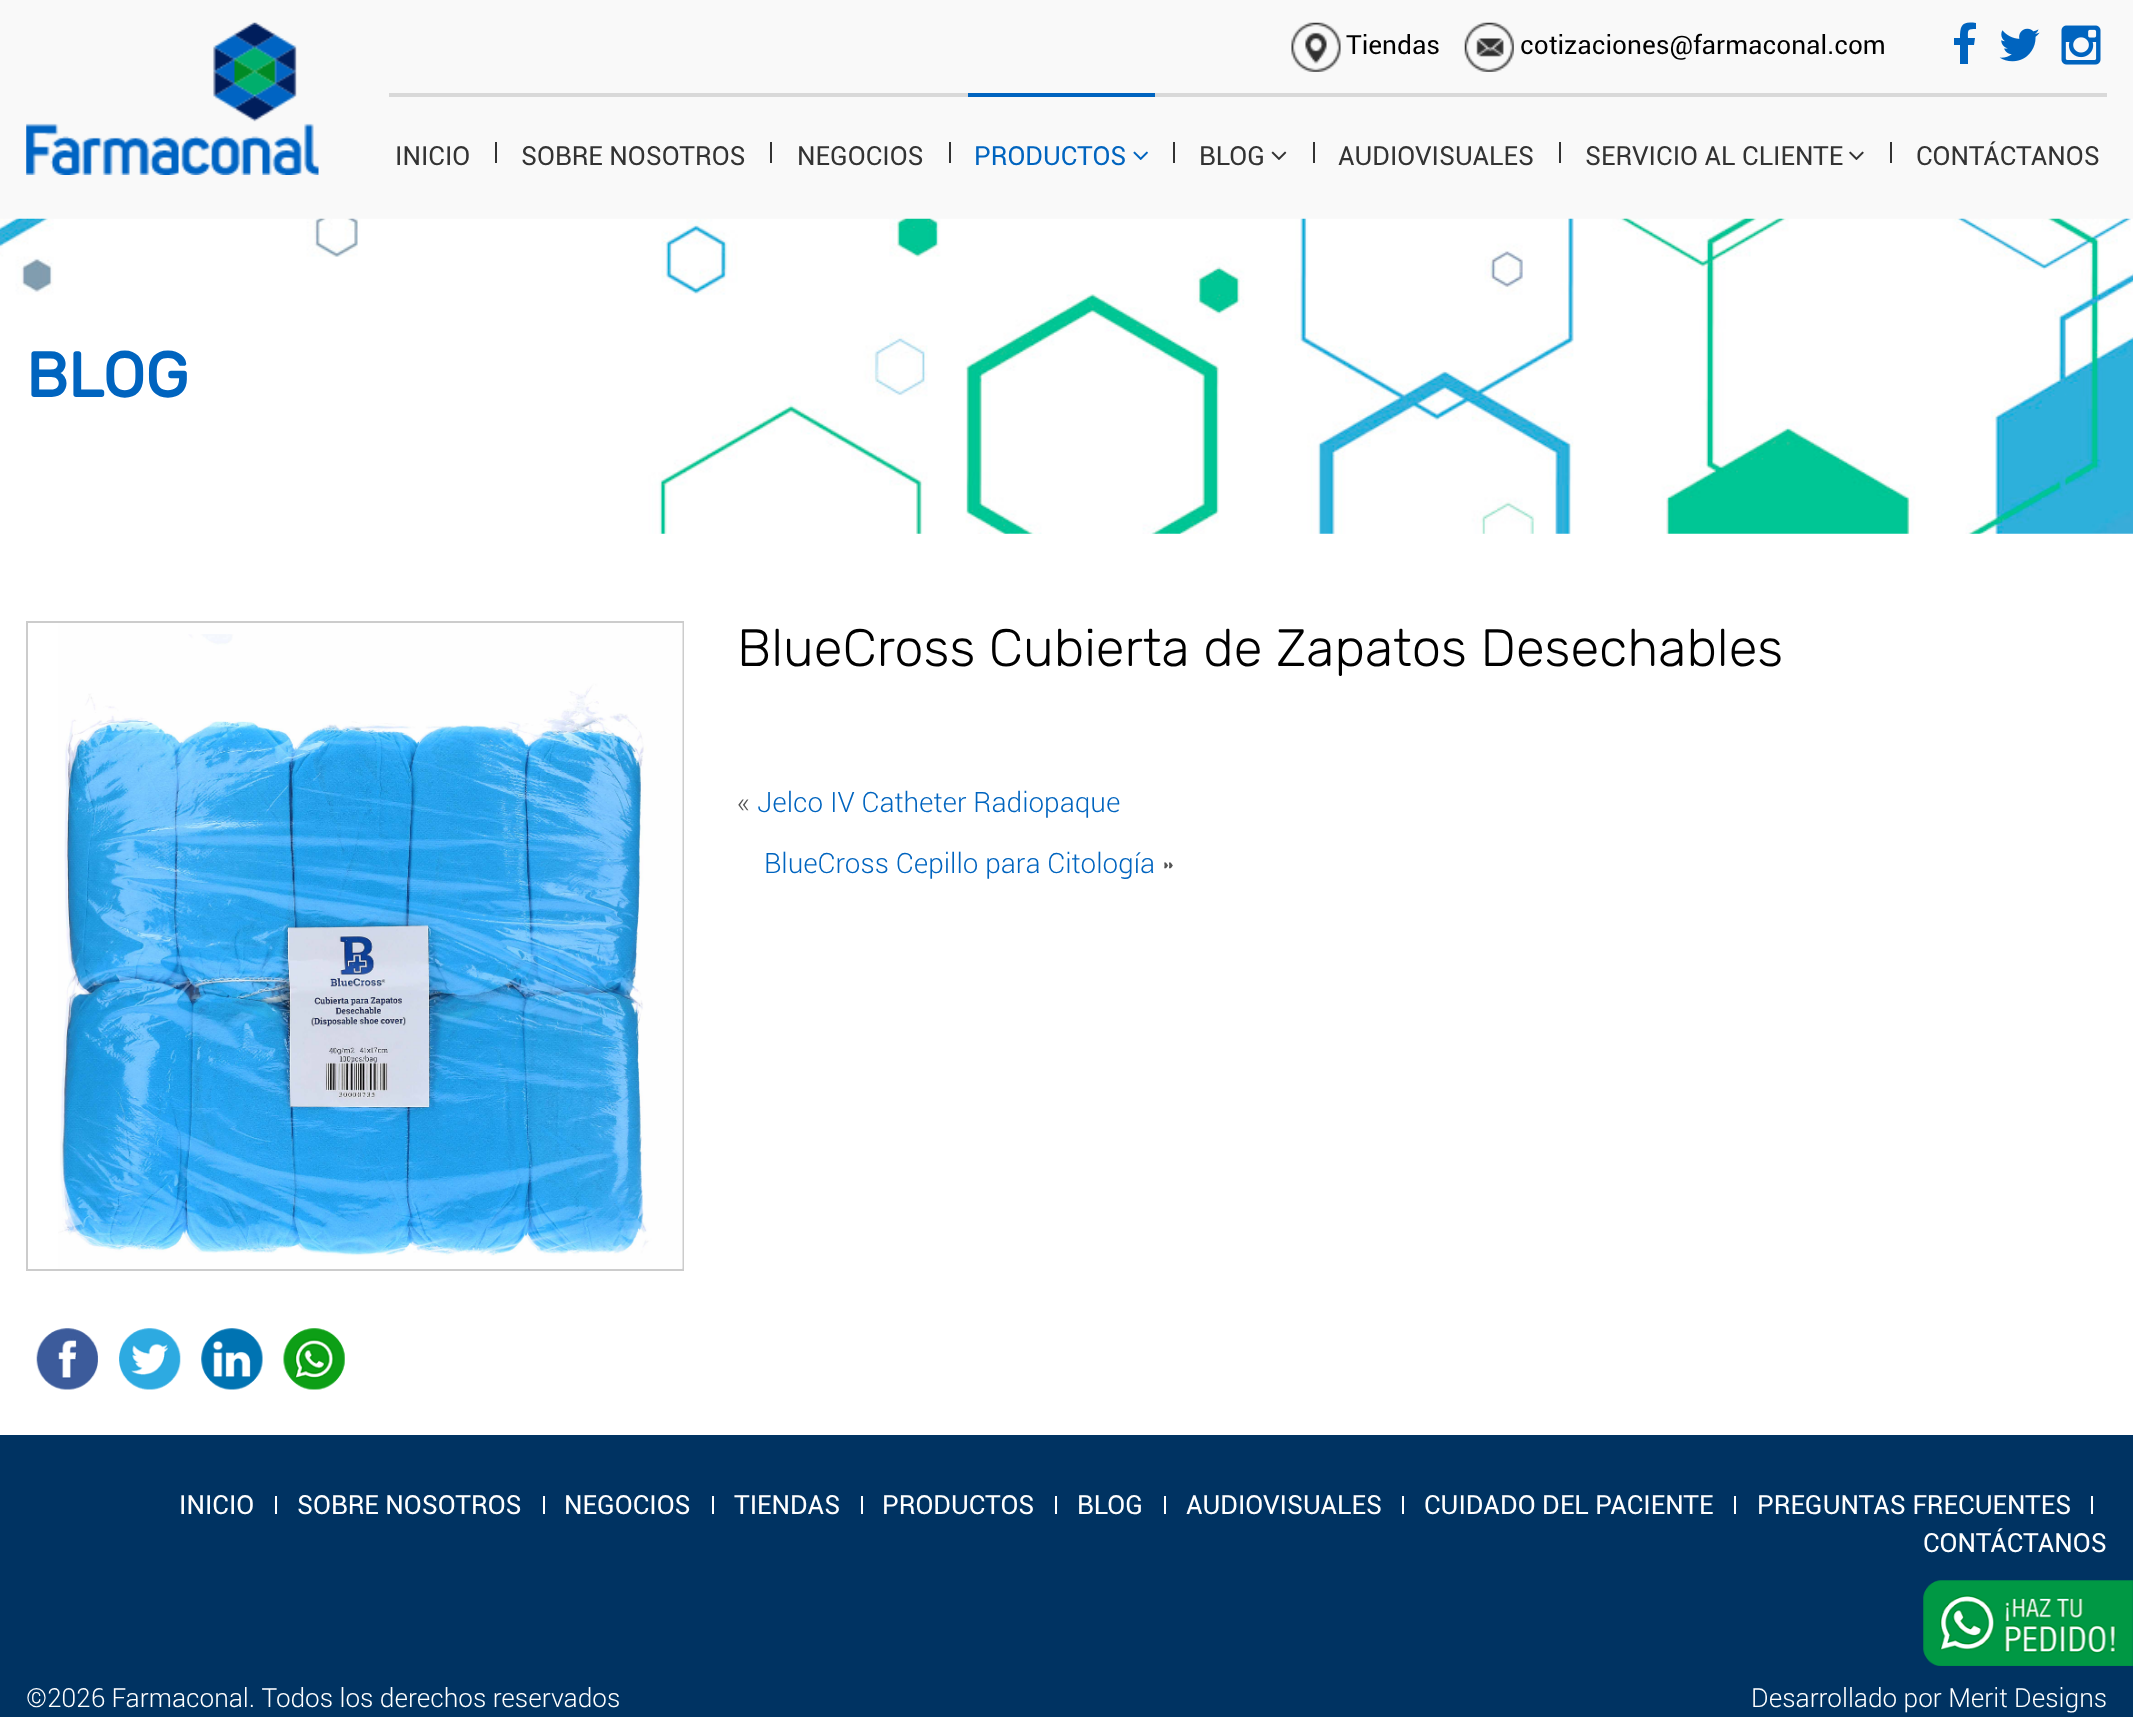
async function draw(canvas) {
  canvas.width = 2133
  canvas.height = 1717
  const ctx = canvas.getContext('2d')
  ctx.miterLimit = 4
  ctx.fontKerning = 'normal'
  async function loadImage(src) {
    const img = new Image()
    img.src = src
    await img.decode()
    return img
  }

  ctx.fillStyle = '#fff'
  ctx.fillRect(0, 0, 2133, 1717)
  ctx.fillStyle = '#f9f9f9'
  ctx.fillRect(0, 0, 2133, 219)
  ctx.drawImage(await loadImage('image0.png'), 1291, 22, 50, 50)
  ctx.font = '26.25px Roboto'
  ctx.fillStyle = '#000'
  ctx.fillText('Tiendas', 1346, 54)
  ctx.drawImage(await loadImage('image1.png'), 1464, 22, 50, 50)
  ctx.fillText('cotizaciones@farmaconal.com', 1520, 54)
  ctx.fillStyle = '#0064bf'
  ctx.beginPath()
  ctx.moveTo(1954, 45)
  ctx.lineTo(1954, 38)
  ctx.lineTo(1960, 38)
  ctx.bezierCurveTo(1960, 25, 1962, 21, 1976, 23)
  ctx.lineTo(1976, 29)
  ctx.bezierCurveTo(1967, 29, 1968, 30, 1968, 38)
  ctx.lineTo(1975, 38)
  ctx.lineTo(1974, 45)
  ctx.lineTo(1968, 45)
  ctx.lineTo(1968, 64)
  ctx.lineTo(1960, 64)
  ctx.lineTo(1960, 45)
  ctx.closePath()
  ctx.fill()
  ctx.drawImage(await loadImage('image2.png'), 1999, 28, 41, 34)
  ctx.drawImage(await loadImage('image3.png'), 2061, 25, 40, 40)
  ctx.drawImage(await loadImage('image4.png'), 26, 22, 293, 153)
  ctx.fillStyle = '#d9d9d9'
  ctx.fillRect(389, 93, 1718, 4)
  ctx.fillStyle = '#333'
  ctx.fillText('INICIO', 395, 165)
  ctx.fillRect(495, 142, 2, 21)
  ctx.fillText('SOBRE NOSOTROS', 521, 165)
  ctx.fillRect(770, 142, 2, 21)
  ctx.fillText('NEGOCIOS', 797, 165)
  ctx.fillRect(949, 142, 2, 21)
  ctx.fillStyle = '#0064bf'
  ctx.fillRect(968, 93, 187, 4)
  ctx.fillText('PRODUCTOS', 974, 165)
  ctx.drawImage(await loadImage('image5.png'), 1133, 151, 15, 9)
  ctx.fillStyle = '#333'
  ctx.fillRect(1173, 142, 2, 21)
  ctx.fillText('BLOG', 1199, 165)
  ctx.drawImage(await loadImage('image6.png'), 1271, 151, 16, 9)
  ctx.fillRect(1313, 142, 2, 21)
  ctx.fillText('AUDIOVISUALES', 1338, 165)
  ctx.fillRect(1559, 142, 2, 21)
  ctx.fillText('SERVICIO AL CLIENTE', 1585, 165)
  ctx.drawImage(await loadImage('image7.png'), 1849, 151, 15, 9)
  ctx.fillRect(1890, 142, 2, 21)
  ctx.fillText('CONTÁCTANOS', 1916, 165)
  ctx.drawImage(await loadImage('image8.png'), 0, 218, 2133, 316)
  ctx.font = 'bold 63px Rubik'
  ctx.fillStyle = '#0064bf'
  ctx.fillText('BLOG', 26, 397)
  ctx.strokeStyle = '#ccc'
  ctx.lineWidth = 2
  ctx.strokeRect(27, 622, 656, 648)
  ctx.drawImage(await loadImage('image9.png'), 58, 623, 625, 646)
  ctx.drawImage(await loadImage('image10.png'), 36, 1328, 62, 62)
  ctx.drawImage(await loadImage('image11.png'), 119, 1328, 62, 62)
  ctx.drawImage(await loadImage('image12.png'), 201, 1328, 62, 62)
  ctx.drawImage(await loadImage('image13.png'), 283, 1328, 62, 62)
  ctx.font = '300 52.5px Rubik'
  ctx.fillStyle = '#000'
  ctx.fillText('BlueCross Cubierta de Zapatos Desechables', 737, 666)
  ctx.font = '300 28px Roboto'
  ctx.fillStyle = '#555'
  ctx.fillText('«', 737, 812)
  ctx.fillStyle = '#0064bf'
  ctx.fillText('Jelco IV Catheter Radiopaque', 757, 812)
  ctx.fillText('BlueCross Cepillo para Citología', 764, 873)
  ctx.fillStyle = '#555'
  ctx.fillText('»', 1161, 873)
  ctx.fillStyle = '#003362'
  ctx.fillRect(0, 1435, 2133, 282)
  ctx.font = '26.25px Roboto'
  ctx.fillStyle = '#fff'
  ctx.fillText('INICIO', 179, 1514)
  ctx.fillRect(275, 1496, 2, 18)
  ctx.fillText('SOBRE NOSOTROS', 297, 1514)
  ctx.fillRect(543, 1496, 2, 18)
  ctx.fillText('NEGOCIOS', 564, 1514)
  ctx.fillRect(712, 1496, 2, 18)
  ctx.fillText('TIENDAS', 734, 1514)
  ctx.fillRect(861, 1496, 2, 18)
  ctx.fillText('PRODUCTOS', 882, 1514)
  ctx.fillRect(1055, 1496, 2, 18)
  ctx.fillText('BLOG', 1077, 1514)
  ctx.fillRect(1164, 1496, 2, 18)
  ctx.fillText('AUDIOVISUALES', 1186, 1514)
  ctx.fillRect(1402, 1496, 2, 18)
  ctx.fillText('CUIDADO DEL PACIENTE', 1424, 1514)
  ctx.fillRect(1734, 1496, 2, 18)
  ctx.fillText('PREGUNTAS FRECUENTES', 1757, 1514)
  ctx.fillRect(2091, 1496, 2, 18)
  ctx.fillText('CONTÁCTANOS', 1923, 1552)
  ctx.font = '300 26.25px Roboto'
  ctx.fillText('©2026 Farmaconal. Todos los derechos reservados', 26, 1707)
  ctx.fillText('Desarrollado por Merit Designs', 1751, 1707)
  ctx.drawImage(await loadImage('image14.png'), 1923, 1580, 210, 86)
}

draw(document.querySelector('canvas'))
